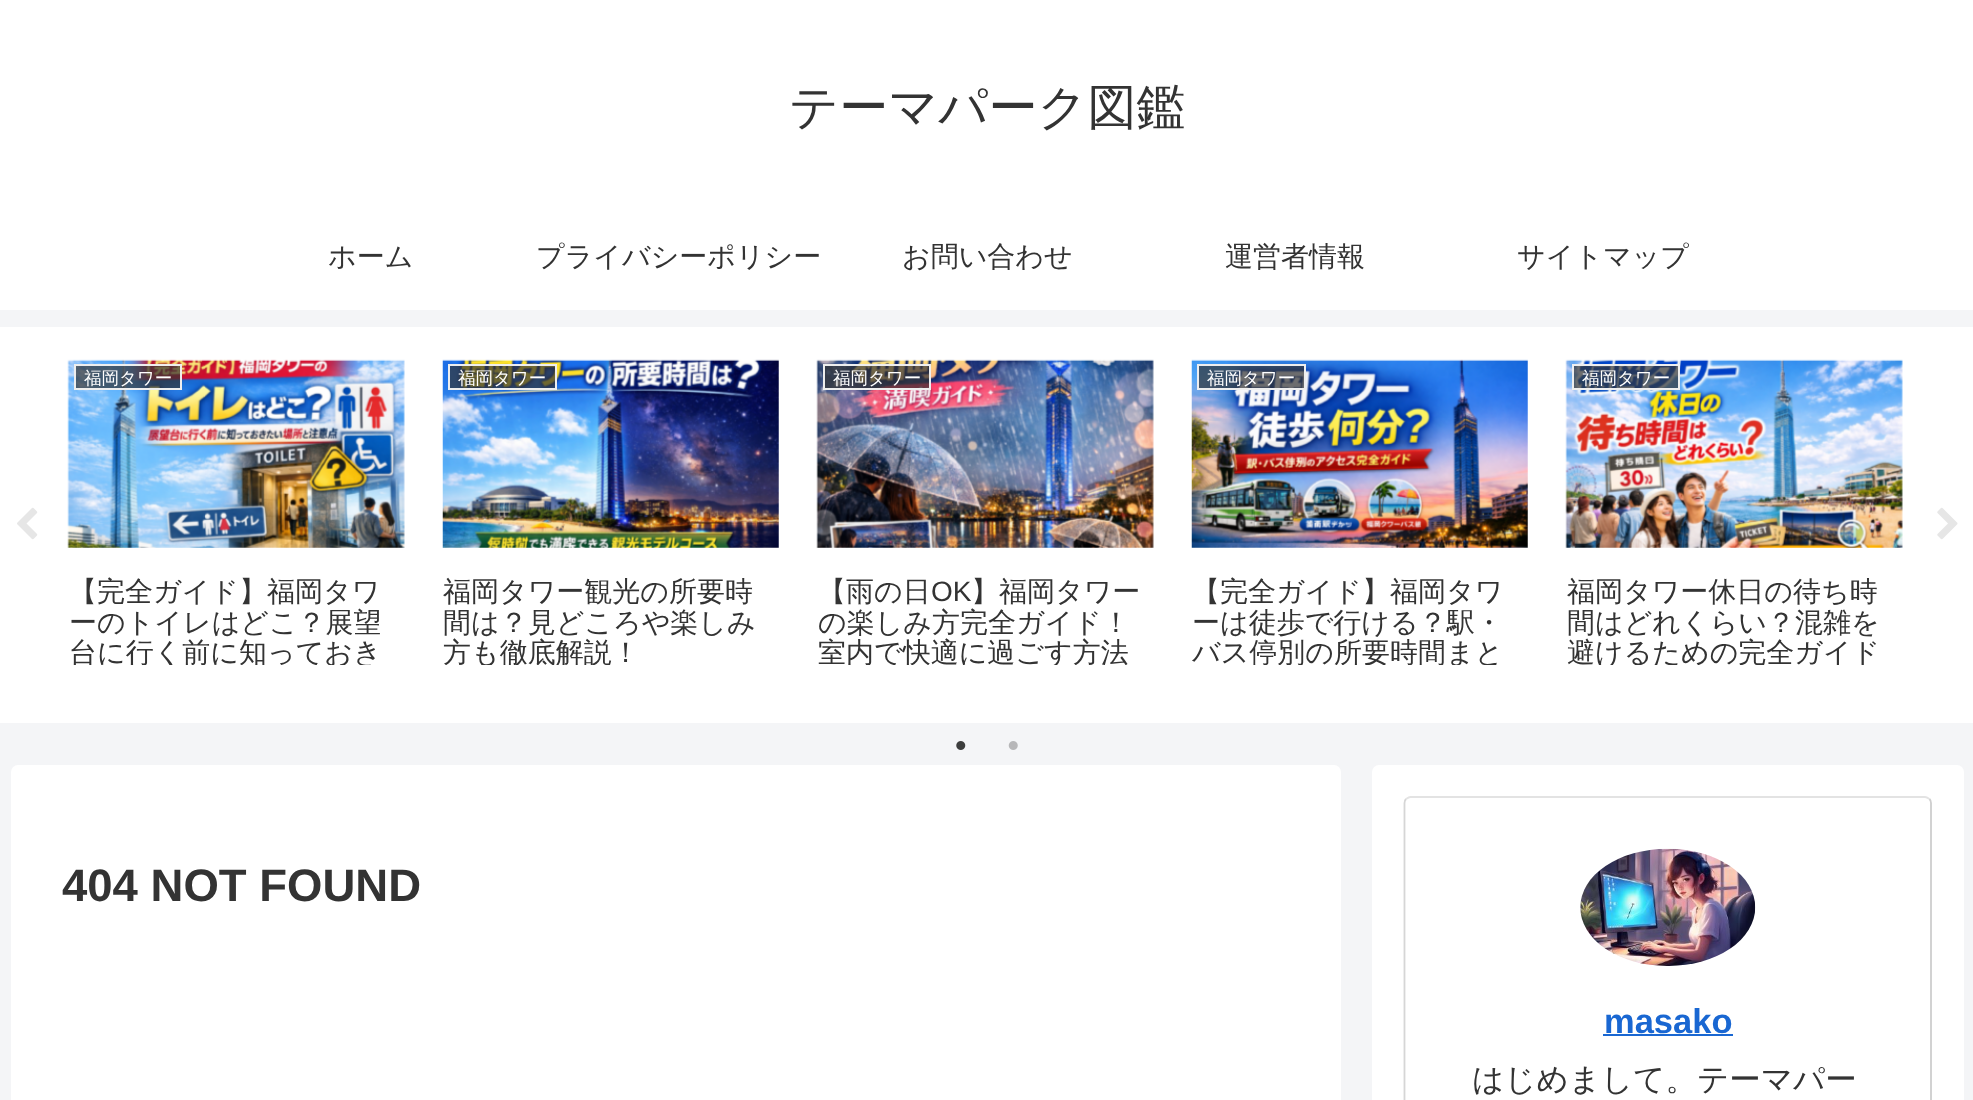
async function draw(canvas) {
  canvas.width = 1973
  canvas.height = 1100
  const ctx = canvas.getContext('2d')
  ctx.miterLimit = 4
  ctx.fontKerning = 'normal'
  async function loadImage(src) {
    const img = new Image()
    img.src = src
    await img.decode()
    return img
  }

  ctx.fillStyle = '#f4f5f7'
  ctx.fillRect(0, 0, 1973, 1100)
  ctx.fillStyle = '#fff'
  ctx.fillRect(0, 0, 1973, 310)
  ctx.font = '500 49px WenQuanYi Zen Hei'
  ctx.fillStyle = '#333'
  ctx.fillText('テーマパーク図鑑', 789, 124)
  ctx.font = '500 28px WenQuanYi Zen Hei'
  ctx.fillText('ホーム', 328, 266)
  ctx.fillText('プライバシーポリシー', 536, 266)
  ctx.fillText('お問い合わせ', 902, 266)
  ctx.fillText('運営者情報', 1225, 266)
  ctx.fillText('サイトマップ', 1517, 266)
  ctx.fillStyle = '#fff'
  ctx.fillRect(0, 327, 1973, 396)
  ctx.drawImage(await loadImage('image0.png'), 17, 507, 21, 33)
  ctx.drawImage(await loadImage('image1.png'), 67, 359, 338, 189)
  ctx.fillStyle = '#333333b3'
  ctx.beginPath()
  ctx.rect(75, 365, 106, 24)
  ctx.fill()
  ctx.strokeStyle = '#eee'
  ctx.lineWidth = 2
  ctx.stroke()
  ctx.font = '500 17.5px WenQuanYi Zen Hei'
  ctx.fillStyle = '#fff'
  ctx.fillText('福岡タワー', 84, 384)
  ctx.font = '500 28px WenQuanYi Zen Hei'
  ctx.fillStyle = '#333'
  ctx.fillText('【完全ガイド】福岡タワ', 69, 601)
  ctx.fillText('ーのトイレはどこ？展望', 69, 632)
  ctx.save()
  ctx.beginPath()
  ctx.rect(68, 576, 336, 89)
  ctx.clip()
  ctx.fillText('台に行く前に知っておき', 69, 662)
  ctx.restore()
  ctx.drawImage(await loadImage('image2.png'), 442, 359, 337, 189)
  ctx.fillStyle = '#333333b3'
  ctx.beginPath()
  ctx.rect(449, 365, 107, 24)
  ctx.fill()
  ctx.stroke()
  ctx.font = '500 17.5px WenQuanYi Zen Hei'
  ctx.fillStyle = '#fff'
  ctx.fillText('福岡タワー', 458, 384)
  ctx.font = '500 28px WenQuanYi Zen Hei'
  ctx.fillStyle = '#333'
  ctx.fillText('福岡タワー観光の所要時', 443, 601)
  ctx.fillText('間は？見どころや楽しみ', 443, 632)
  ctx.save()
  ctx.beginPath()
  ctx.rect(443, 576, 336, 89)
  ctx.clip()
  ctx.fillText('方も徹底解説！', 443, 662)
  ctx.restore()
  ctx.drawImage(await loadImage('image3.png'), 816, 359, 338, 189)
  ctx.fillStyle = '#333333b3'
  ctx.beginPath()
  ctx.rect(824, 365, 106, 24)
  ctx.fill()
  ctx.stroke()
  ctx.font = '500 17.5px WenQuanYi Zen Hei'
  ctx.fillStyle = '#fff'
  ctx.fillText('福岡タワー', 833, 384)
  ctx.font = '500 28px WenQuanYi Zen Hei'
  ctx.fillStyle = '#333'
  ctx.fillText('【雨の日', 818, 601)
  ctx.font = '28px Liberation Sans'
  ctx.fillText('OK', 931, 601)
  ctx.font = '500 28px WenQuanYi Zen Hei'
  ctx.fillText('】福岡タワー', 971, 601)
  ctx.fillText('の楽しみ方完全ガイド！', 818, 632)
  ctx.save()
  ctx.beginPath()
  ctx.rect(817, 576, 336, 89)
  ctx.clip()
  ctx.fillText('室内で快適に過ごす方法', 818, 662)
  ctx.restore()
  ctx.drawImage(await loadImage('image4.png'), 1191, 359, 337, 189)
  ctx.fillStyle = '#333333b3'
  ctx.beginPath()
  ctx.rect(1198, 365, 107, 24)
  ctx.fill()
  ctx.stroke()
  ctx.font = '500 17.5px WenQuanYi Zen Hei'
  ctx.fillStyle = '#fff'
  ctx.fillText('福岡タワー', 1207, 384)
  ctx.font = '500 28px WenQuanYi Zen Hei'
  ctx.fillStyle = '#333'
  ctx.fillText('【完全ガイド】福岡タワ', 1192, 601)
  ctx.fillText('ーは徒歩で行ける？駅・', 1192, 632)
  ctx.save()
  ctx.beginPath()
  ctx.rect(1192, 576, 336, 89)
  ctx.clip()
  ctx.fillText('バス停別の所要時間まと', 1192, 662)
  ctx.restore()
  ctx.drawImage(await loadImage('image5.png'), 1565, 359, 338, 189)
  ctx.fillStyle = '#333333b3'
  ctx.beginPath()
  ctx.rect(1573, 365, 106, 24)
  ctx.fill()
  ctx.stroke()
  ctx.font = '500 17.5px WenQuanYi Zen Hei'
  ctx.fillStyle = '#fff'
  ctx.fillText('福岡タワー', 1582, 384)
  ctx.font = '500 28px WenQuanYi Zen Hei'
  ctx.fillStyle = '#333'
  ctx.fillText('福岡タワー休日の待ち時', 1567, 601)
  ctx.fillText('間はどれくらい？混雑を', 1567, 632)
  ctx.save()
  ctx.beginPath()
  ctx.rect(1566, 576, 336, 89)
  ctx.clip()
  ctx.fillText('避けるための完全ガイド', 1567, 662)
  ctx.restore()
  ctx.drawImage(await loadImage('image6.png'), 1937, 507, 21, 33)
  ctx.drawImage(await loadImage('image7.png'), 956, 741, 10, 9)
  ctx.drawImage(await loadImage('image8.png'), 1008, 741, 10, 9)
  ctx.fillStyle = '#fff'
  ctx.beginPath()
  ctx.roundRect(11, 765, 1330, 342, 7)
  ctx.fill()
  ctx.font = 'bold 45.5px Liberation Sans'
  ctx.fillStyle = '#333'
  ctx.fillText('404 NOT FOUND', 62, 901)
  ctx.fillStyle = '#fff'
  ctx.beginPath()
  ctx.roundRect(1372, 765, 592, 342, 7)
  ctx.fill()
  ctx.beginPath()
  ctx.moveTo(1406, 799)
  ctx.bezierCurveTo(1407.5, 798, 1409, 797, 1410.5, 797)
  ctx.lineTo(1925, 797)
  ctx.bezierCurveTo(1926.5, 797, 1928, 798, 1929.5, 799)
  ctx.strokeStyle = '#e3e3e3'
  ctx.lineWidth = 1.8
  ctx.stroke()
  ctx.beginPath()
  ctx.moveTo(1929.5, 799)
  ctx.bezierCurveTo(1930.5, 800, 1931, 801.5, 1931, 803)
  ctx.lineTo(1931, 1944)
  ctx.bezierCurveTo(1931, 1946, 1930.5, 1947.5, 1929.5, 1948.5)
  ctx.strokeStyle = '#cecece'
  ctx.stroke()
  ctx.beginPath()
  ctx.moveTo(1406, 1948.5)
  ctx.bezierCurveTo(1405, 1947.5, 1404.5, 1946, 1404.5, 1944)
  ctx.lineTo(1404.5, 803)
  ctx.bezierCurveTo(1404.5, 801.5, 1405, 800, 1406, 799)
  ctx.strokeStyle = '#d6d6d6'
  ctx.stroke()
  ctx.drawImage(await loadImage('image9.png'), 1580, 848, 176, 118)
  ctx.font = 'bold 34.5px Liberation Sans'
  ctx.fillStyle = '#1967d2'
  ctx.fillText('masako', 1604, 1033)
  ctx.fillRect(1603, 1034, 130, 2)
  ctx.font = '500 31.5px WenQuanYi Zen Hei'
  ctx.fillStyle = '#333'
  ctx.fillText('はじめまして。テーマパー', 1472, 1090)
}

draw(document.querySelector('canvas'))
